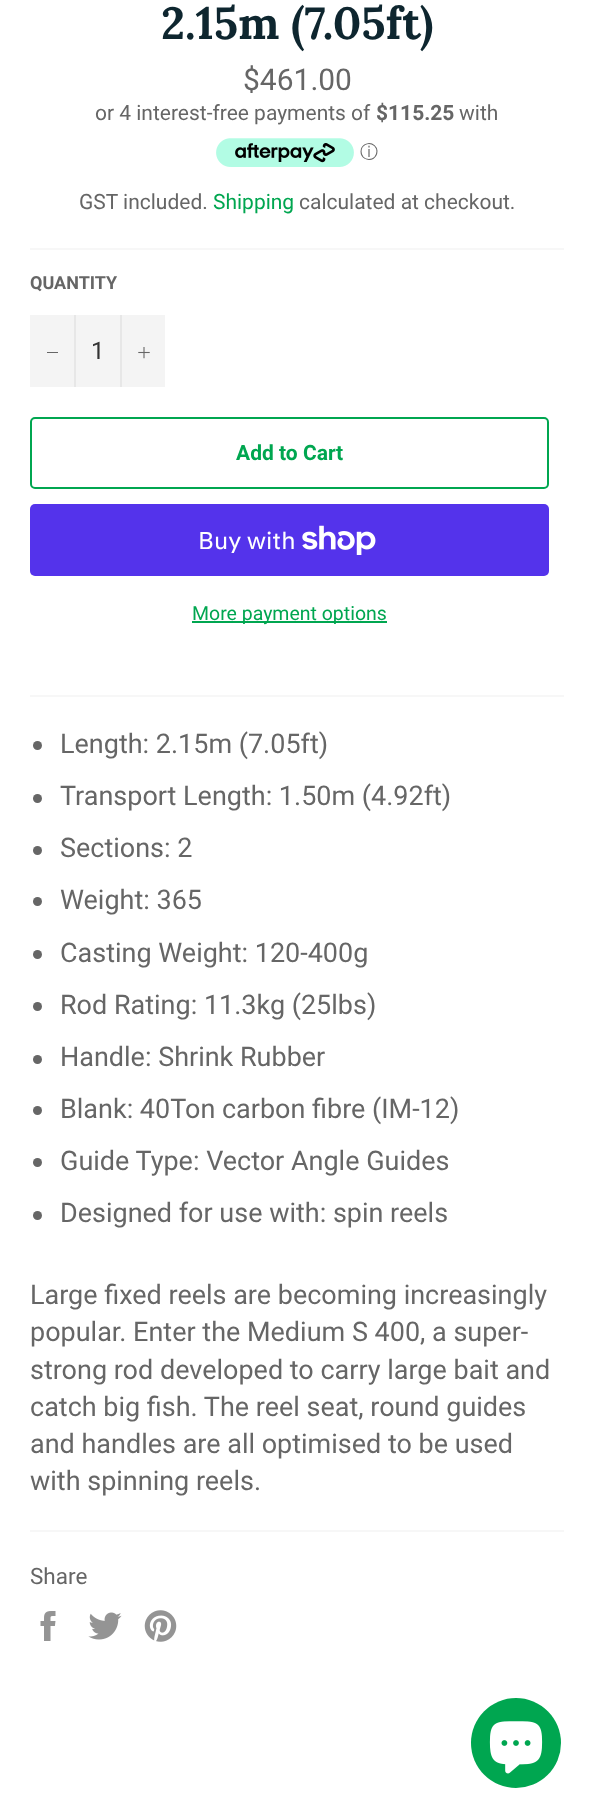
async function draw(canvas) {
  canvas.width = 594
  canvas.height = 1819
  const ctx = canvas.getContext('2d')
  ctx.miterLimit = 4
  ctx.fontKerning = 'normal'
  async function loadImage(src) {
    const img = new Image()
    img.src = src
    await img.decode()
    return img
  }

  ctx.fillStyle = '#fff'
  ctx.fillRect(0, 0, 594, 1819)
  ctx.font = 'bold 45px Lora'
  ctx.fillStyle = '#0e262f'
  ctx.fillText('2.15m (7.05ft)', 161, 39)
  ctx.font = '30px Roboto'
  ctx.fillStyle = '#666'
  ctx.fillText('$461.00', 243, 90)
  ctx.font = '21px Roboto'
  ctx.fillText('or 4 interest-free payments of', 95, 120)
  ctx.font = 'bold 21px Roboto'
  ctx.fillText('$115.25', 376, 120)
  ctx.font = '21px Roboto'
  ctx.fillText('with', 459, 120)
  ctx.drawImage(await loadImage('image0.png'), 216, 138, 138, 29)
  ctx.font = '500 18px WenQuanYi Zen Hei'
  ctx.fillText('ⓘ', 360, 158)
  ctx.font = '21px Roboto'
  ctx.fillText('GST included.', 79, 209)
  ctx.fillStyle = '#00a650'
  ctx.fillText('Shipping', 213, 209)
  ctx.fillStyle = '#666'
  ctx.fillText('calculated at checkout.', 299, 209)
  ctx.fillStyle = '#f7f7f7'
  ctx.fillRect(30, 248, 534, 2)
  ctx.font = 'bold 18px Roboto'
  ctx.fillStyle = '#666'
  ctx.fillText('QUANTITY', 30, 289)
  ctx.fillStyle = '#f4f4f4'
  ctx.fillRect(30, 315, 135, 72)
  ctx.fillStyle = '#e7e7e7'
  ctx.fillRect(74, 315, 2, 72)
  ctx.fillStyle = '#666'
  ctx.fillRect(47, 352, 11, 1)
  ctx.font = '24px Roboto'
  ctx.fillStyle = '#333'
  ctx.fillText('1', 91, 359)
  ctx.fillStyle = '#e7e7e7'
  ctx.fillRect(120, 315, 2, 72)
  ctx.drawImage(await loadImage('image1.png'), 138, 347, 12, 12)
  ctx.beginPath()
  ctx.roundRect(31, 418, 517, 70, 4)
  ctx.strokeStyle = '#00a650'
  ctx.lineWidth = 2
  ctx.stroke()
  ctx.font = 'bold 21px Roboto'
  ctx.fillStyle = '#00a650'
  ctx.fillText('Add to Cart', 236, 460)
  ctx.fillStyle = '#5433eb'
  ctx.beginPath()
  ctx.roundRect(30, 504, 519, 72, 5)
  ctx.fill()
  ctx.font = '24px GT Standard'
  ctx.fillStyle = '#fff'
  ctx.fillText('Buy with', 198, 549)
  ctx.drawImage(await loadImage('image2.png'), 302, 525, 74, 30)
  ctx.fillStyle = '#00a650'
  ctx.fillRect(192, 621, 195, 2)
  ctx.font = '19.5px Roboto'
  ctx.fillText('More payment options', 192, 620)
  ctx.fillStyle = '#f7f7f7'
  ctx.fillRect(30, 695, 534, 2)
  ctx.fillStyle = '#666'
  ctx.beginPath()
  ctx.arc(37.5, 745.5, 4.5, 0, 2 * Math.PI)
  ctx.fill()
  ctx.font = '27px Roboto'
  ctx.fillText('Length: 2.15m (7.05ft)', 60, 753)
  ctx.beginPath()
  ctx.arc(37.5, 798.5, 4.5, 0, 2 * Math.PI)
  ctx.fill()
  ctx.fillText('Transport Length: 1.50m (4.92ft)', 60, 805)
  ctx.beginPath()
  ctx.arc(37.5, 850.5, 4.5, 0, 2 * Math.PI)
  ctx.fill()
  ctx.fillText('Sections: 2', 60, 857)
  ctx.beginPath()
  ctx.arc(37.5, 901.5, 4.5, 0, 2 * Math.PI)
  ctx.fill()
  ctx.fillText('Weight: 365', 60, 909)
  ctx.beginPath()
  ctx.arc(37.5, 954.5, 4.5, 0, 2 * Math.PI)
  ctx.fill()
  ctx.fillText('Casting Weight: 120-400g', 60, 962)
  ctx.beginPath()
  ctx.arc(37.5, 1006.5, 4.5, 0, 2 * Math.PI)
  ctx.fill()
  ctx.fillText('Rod Rating: 11.3kg (25lbs)', 60, 1014)
  ctx.beginPath()
  ctx.arc(37.5, 1059.5, 4.5, 0, 2 * Math.PI)
  ctx.fill()
  ctx.fillText('Handle: Shrink Rubber', 60, 1066)
  ctx.beginPath()
  ctx.arc(37.5, 1110.5, 4.5, 0, 2 * Math.PI)
  ctx.fill()
  ctx.fillText('Blank: 40Ton carbon fibre (IM-12)', 60, 1118)
  ctx.beginPath()
  ctx.arc(37.5, 1162.5, 4.5, 0, 2 * Math.PI)
  ctx.fill()
  ctx.fillText('Guide Type: Vector Angle Guides', 60, 1170)
  ctx.beginPath()
  ctx.arc(37.5, 1215.5, 4.5, 0, 2 * Math.PI)
  ctx.fill()
  ctx.fillText('Designed for use with: spin reels', 60, 1222)
  ctx.fillText('Large fixed reels are becoming increasingly', 30, 1304)
  ctx.fillText('popular. Enter the Medium S 400, a super-', 30, 1341)
  ctx.fillText('strong rod developed to carry large bait and', 30, 1379)
  ctx.fillText('catch big fish. The reel seat, round guides', 30, 1416)
  ctx.fillText('and handles are all optimised to be used', 30, 1453)
  ctx.fillText('with spinning reels.', 30, 1490)
  ctx.fillStyle = '#f7f7f7'
  ctx.fillRect(30, 1530, 534, 2)
  ctx.font = '22.5px Roboto'
  ctx.fillStyle = '#666'
  ctx.fillText('Share', 30, 1584)
  ctx.drawImage(await loadImage('image3.png'), 40, 1611, 16, 30)
  ctx.drawImage(await loadImage('image4.png'), 88, 1612, 34, 28)
  ctx.drawImage(await loadImage('image5.png'), 144, 1610, 33, 32)
  ctx.fillStyle = '#00a650'
  ctx.beginPath()
  ctx.arc(516, 1743, 45, 0, 2 * Math.PI)
  ctx.fill()
  ctx.drawImage(await loadImage('image6.png'), 489, 1721, 54, 53)
}

draw(document.querySelector('canvas'))
